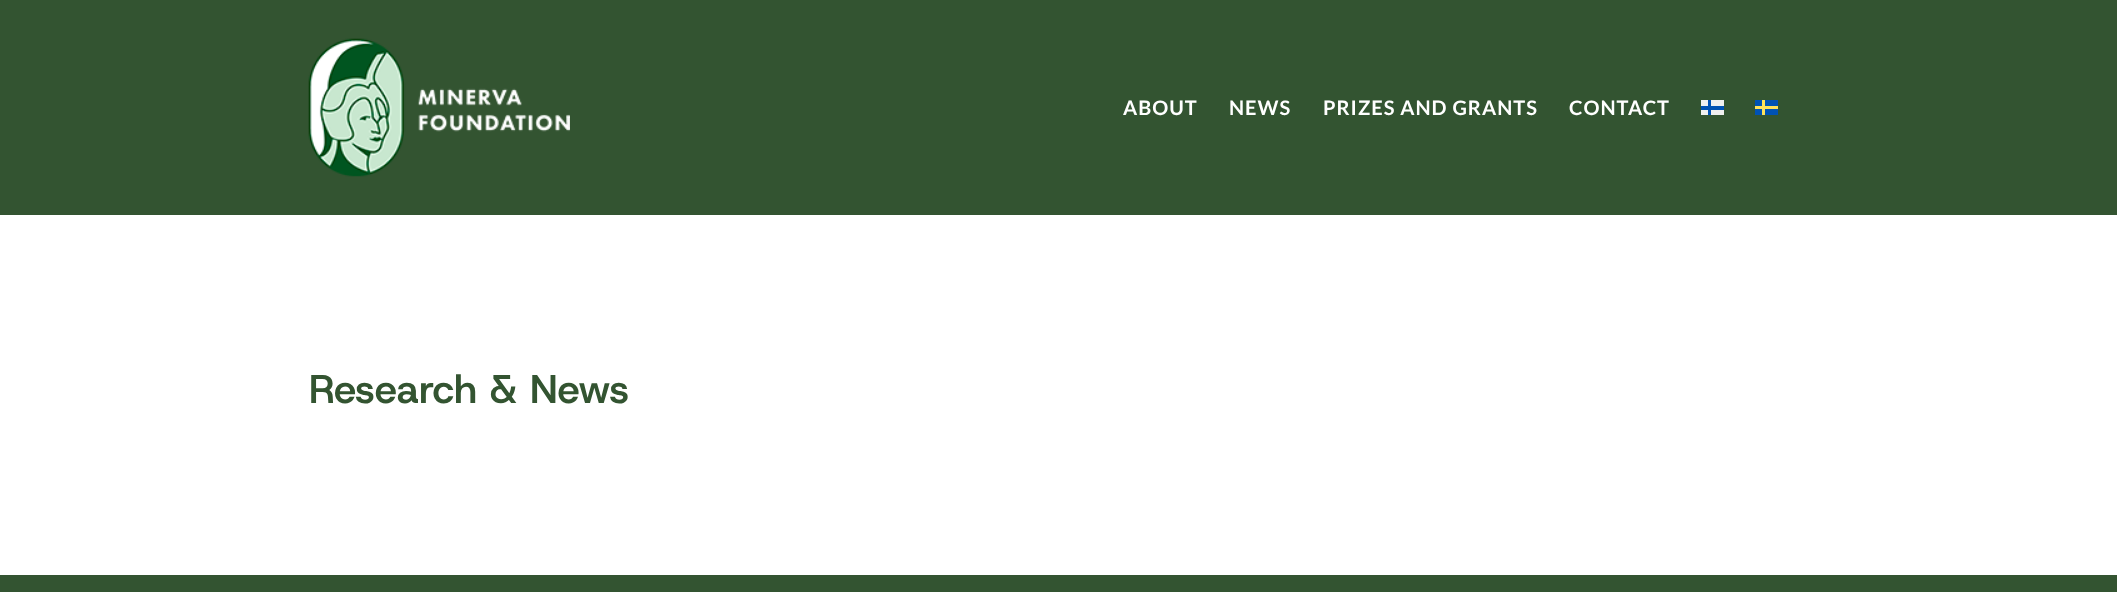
async function draw(canvas) {
  canvas.width = 2117
  canvas.height = 592
  const ctx = canvas.getContext('2d')
  ctx.miterLimit = 4
  ctx.fontKerning = 'normal'
  async function loadImage(src) {
    const img = new Image()
    img.src = src
    await img.decode()
    return img
  }

  ctx.fillStyle = '#fff'
  ctx.fillRect(0, 0, 2117, 592)
  ctx.fillStyle = '#335431'
  ctx.fillRect(0, 0, 2117, 215)
  ctx.drawImage(await loadImage('image0.png'), 308, 38, 262, 139)
  ctx.letterSpacing = '1px'
  ctx.font = 'bold 20px Lato'
  ctx.fillStyle = '#fff'
  ctx.fillText('ABOUT', 1123, 115)
  ctx.fillText('NEWS', 1229, 115)
  ctx.fillText('PRIZES AND GRANTS', 1323, 115)
  ctx.fillText('CONTACT', 1569, 115)
  ctx.fillStyle = '#f0f0f0'
  ctx.fillRect(1701, 100, 23, 15)
  ctx.fillStyle = '#0052b4'
  ctx.fillRect(1701, 106, 23, 4)
  ctx.fillRect(1708, 100, 3, 15)
  ctx.fillRect(1755, 100, 23, 15)
  ctx.fillStyle = '#ffe15a'
  ctx.fillRect(1762, 100, 3, 15)
  ctx.fillRect(1755, 106, 23, 3)
  ctx.letterSpacing = '0px'
  ctx.font = '600 40px Host Grotesk'
  ctx.fillStyle = '#335431'
  ctx.fillText('Research & News', 309, 403)
  ctx.fillRect(0, 575, 2117, 17)
}

draw(document.querySelector('canvas'))
